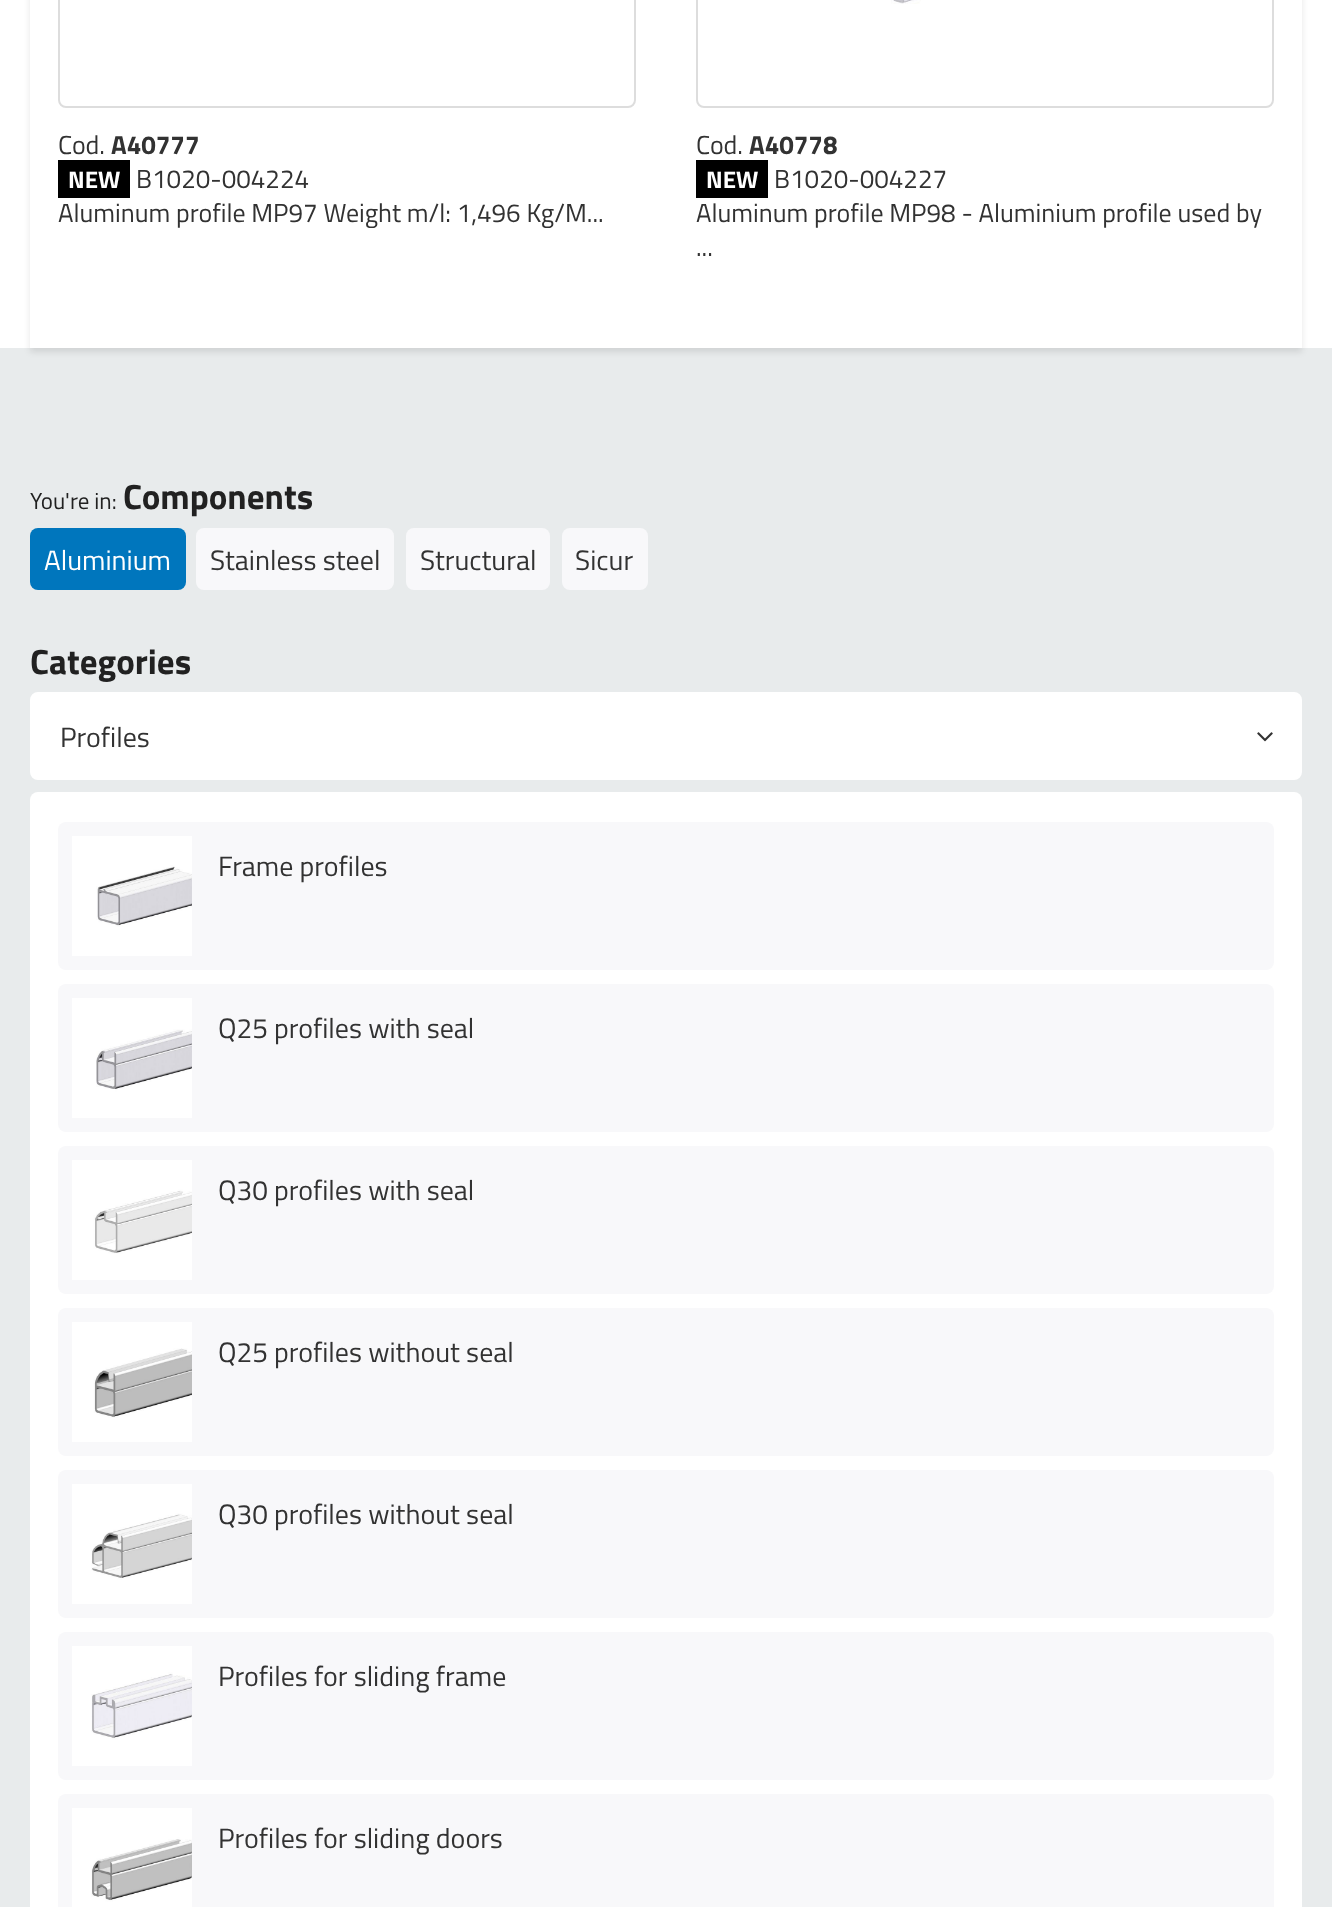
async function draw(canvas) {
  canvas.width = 1332
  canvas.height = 1907
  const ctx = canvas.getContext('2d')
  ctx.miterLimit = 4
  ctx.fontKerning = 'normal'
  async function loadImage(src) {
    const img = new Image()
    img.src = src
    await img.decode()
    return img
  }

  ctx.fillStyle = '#e8ebec'
  ctx.fillRect(0, 0, 1332, 1907)
  ctx.fillStyle = '#fff'
  ctx.fillRect(0, 0, 1332, 348)
  ctx.save()
  ctx.beginPath()
  ctx.moveTo(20, 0)
  ctx.lineTo(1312, 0)
  ctx.lineTo(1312, 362)
  ctx.lineTo(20, 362)
  ctx.closePath()
  ctx.moveTo(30, -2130)
  ctx.lineTo(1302, -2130)
  ctx.lineTo(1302, 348)
  ctx.lineTo(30, 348)
  ctx.closePath()
  ctx.clip('evenodd')
  ctx.fillStyle = '#0000001a'
  ctx.filter = 'blur(3px)'
  ctx.beginPath()
  ctx.rect(30, -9, 1272, 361)
  ctx.fill()
  ctx.filter = 'none'
  ctx.restore()
  ctx.beginPath()
  ctx.roundRect(59, -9, 576, 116, 7)
  ctx.strokeStyle = '#ddd'
  ctx.lineWidth = 2
  ctx.stroke()
  ctx.font = '26px Titillium Web'
  ctx.fillStyle = '#323232'
  ctx.fillText('Cod.', 58, 154)
  ctx.font = 'bold 26px Titillium Web'
  ctx.fillText('A40777', 111, 154)
  ctx.fillStyle = '#000'
  ctx.fillRect(58, 160, 72, 38)
  ctx.font = 'bold 24px Titillium Web'
  ctx.fillStyle = '#fff'
  ctx.fillText('NEW', 68, 188)
  ctx.font = '26px Titillium Web'
  ctx.fillStyle = '#323232'
  ctx.fillText('B1020-004224', 136, 188)
  ctx.fillText('Aluminum profile MP97 Weight m/l: 1,496 Kg/M...', 58, 222)
  ctx.beginPath()
  ctx.roundRect(697, -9, 576, 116, 7)
  ctx.stroke()
  ctx.drawImage(await loadImage('image0.png'), 891, 0, 30, 4)
  ctx.fillText('Cod.', 696, 154)
  ctx.font = 'bold 26px Titillium Web'
  ctx.fillText('A40778', 749, 154)
  ctx.fillStyle = '#000'
  ctx.fillRect(696, 160, 72, 38)
  ctx.font = 'bold 24px Titillium Web'
  ctx.fillStyle = '#fff'
  ctx.fillText('NEW', 706, 188)
  ctx.font = '26px Titillium Web'
  ctx.fillStyle = '#323232'
  ctx.fillText('B1020-004227', 774, 188)
  ctx.fillText('Aluminum profile MP98 - Aluminium profile used by', 696, 222)
  ctx.fillText('...', 696, 256)
  ctx.font = '23px Titillium Web'
  ctx.fillStyle = '#212121'
  ctx.fillText('You\'re in:', 30, 509)
  ctx.font = 'bold 35px Titillium Web'
  ctx.fillText('Components', 123, 509)
  ctx.fillStyle = '#0076bd'
  ctx.beginPath()
  ctx.roundRect(30, 528, 156, 62, 8)
  ctx.fill()
  ctx.font = '28px Titillium Web'
  ctx.fillStyle = '#fff'
  ctx.fillText('Aluminium', 44, 570)
  ctx.fillStyle = '#f8f8fa'
  ctx.beginPath()
  ctx.roundRect(196, 528, 198, 62, 8)
  ctx.fill()
  ctx.fillStyle = '#323232'
  ctx.fillText('Stainless steel', 210, 570)
  ctx.fillStyle = '#f8f8fa'
  ctx.beginPath()
  ctx.roundRect(406, 528, 144, 62, 8)
  ctx.fill()
  ctx.fillStyle = '#323232'
  ctx.fillText('Structural', 420, 570)
  ctx.fillStyle = '#f8f8fa'
  ctx.beginPath()
  ctx.roundRect(562, 528, 86, 62, 8)
  ctx.fill()
  ctx.fillStyle = '#323232'
  ctx.fillText('Sicur', 575, 570)
  ctx.font = 'bold 35px Titillium Web'
  ctx.fillStyle = '#212121'
  ctx.fillText('Categories', 30, 674)
  ctx.fillStyle = '#fff'
  ctx.beginPath()
  ctx.roundRect(31, 693, 1270, 86, 7)
  ctx.fill()
  ctx.strokeStyle = '#fff'
  ctx.stroke()
  ctx.font = '28px Titillium Web'
  ctx.fillStyle = '#323232'
  ctx.fillText('Profiles', 60, 747)
  ctx.drawImage(await loadImage('image1.png'), 1257, 732, 16, 10)
  ctx.fillStyle = '#fff'
  ctx.beginPath()
  ctx.roundRect(30, 792, 1272, 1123, 8)
  ctx.fill()
  ctx.fillStyle = '#f8f8fa'
  ctx.beginPath()
  ctx.roundRect(58, 822, 1216, 148, 8)
  ctx.fill()
  ctx.drawImage(await loadImage('image2.png'), 72, 836, 120, 120)
  ctx.fillStyle = '#323232'
  ctx.fillText('Frame profiles', 218, 876)
  ctx.fillStyle = '#f8f8fa'
  ctx.beginPath()
  ctx.roundRect(58, 984, 1216, 148, 8)
  ctx.fill()
  ctx.drawImage(await loadImage('image3.png'), 72, 998, 120, 120)
  ctx.fillStyle = '#323232'
  ctx.fillText('Q25 profiles with seal', 218, 1038)
  ctx.fillStyle = '#f8f8fa'
  ctx.beginPath()
  ctx.roundRect(58, 1146, 1216, 148, 8)
  ctx.fill()
  ctx.drawImage(await loadImage('image4.png'), 72, 1160, 120, 120)
  ctx.fillStyle = '#323232'
  ctx.fillText('Q30 profiles with seal', 218, 1200)
  ctx.fillStyle = '#f8f8fa'
  ctx.beginPath()
  ctx.roundRect(58, 1308, 1216, 148, 8)
  ctx.fill()
  ctx.drawImage(await loadImage('image5.png'), 72, 1322, 120, 120)
  ctx.fillStyle = '#323232'
  ctx.fillText('Q25 profiles without seal', 218, 1362)
  ctx.fillStyle = '#f8f8fa'
  ctx.beginPath()
  ctx.roundRect(58, 1470, 1216, 148, 8)
  ctx.fill()
  ctx.drawImage(await loadImage('image6.png'), 72, 1484, 120, 120)
  ctx.fillStyle = '#323232'
  ctx.fillText('Q30 profiles without seal', 218, 1524)
  ctx.fillStyle = '#f8f8fa'
  ctx.beginPath()
  ctx.roundRect(58, 1632, 1216, 148, 8)
  ctx.fill()
  ctx.drawImage(await loadImage('image7.png'), 72, 1646, 120, 120)
  ctx.fillStyle = '#323232'
  ctx.fillText('Profiles for sliding frame', 218, 1686)
  ctx.fillStyle = '#f8f8fa'
  ctx.beginPath()
  ctx.roundRect(58, 1794, 1216, 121, 8)
  ctx.fill()
  ctx.drawImage(await loadImage('image8.png'), 72, 1808, 120, 99)
  ctx.fillStyle = '#323232'
  ctx.fillText('Profiles for sliding doors', 218, 1848)
}

draw(document.querySelector('canvas'))
